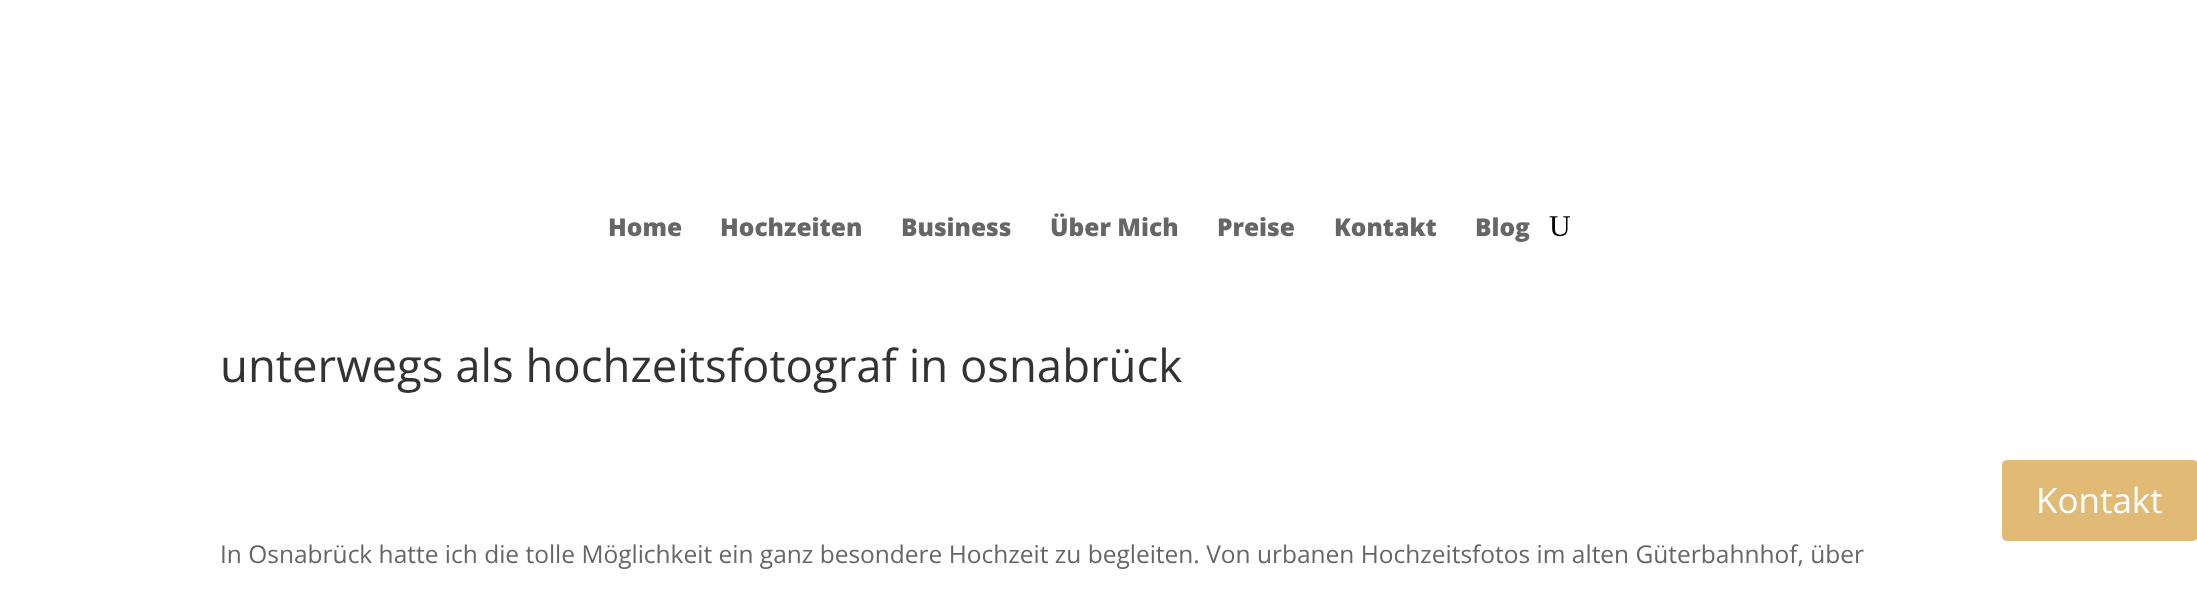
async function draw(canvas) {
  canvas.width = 2197
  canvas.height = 593
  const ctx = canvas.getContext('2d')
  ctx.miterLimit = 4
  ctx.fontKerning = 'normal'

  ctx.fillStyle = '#fff'
  ctx.fillRect(0, 0, 2197, 593)
  ctx.font = '800 24.5px Open Sans'
  ctx.fillStyle = '#666'
  ctx.fillText('Home', 608, 236)
  ctx.fillText('Hochzeiten', 720, 236)
  ctx.fillText('Business', 901, 236)
  ctx.fillText('Über Mich', 1050, 236)
  ctx.fillText('Preise', 1217, 236)
  ctx.fillText('Kontakt', 1334, 236)
  ctx.fillText('Blog', 1475, 236)
  ctx.font = '30px Liberation Serif'
  ctx.fillStyle = '#000'
  ctx.fillText('U', 1549, 236)
  ctx.font = '45.5px Open Sans'
  ctx.fillStyle = '#333'
  ctx.fillText('unterwegs als hochzeitsfotograf in osnabrück', 220, 382)
  ctx.font = '24.5px Open Sans'
  ctx.fillStyle = '#666'
  ctx.fillText('In Osnabrück hatte ich die tolle Möglichkeit ein ganz besondere Hochzeit zu begleiten. Von urbanen Hochzeitsfotos im alten Güterbahnhof, über', 220, 563)
  ctx.fillStyle = '#e1ba75'
  ctx.beginPath()
  ctx.roundRect(2002, 460, 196, 81, 5)
  ctx.fill()
  ctx.font = '35px Open Sans'
  ctx.fillStyle = '#fff'
  ctx.fillText('Kontakt', 2036, 513)
}

draw(document.querySelector('canvas'))
